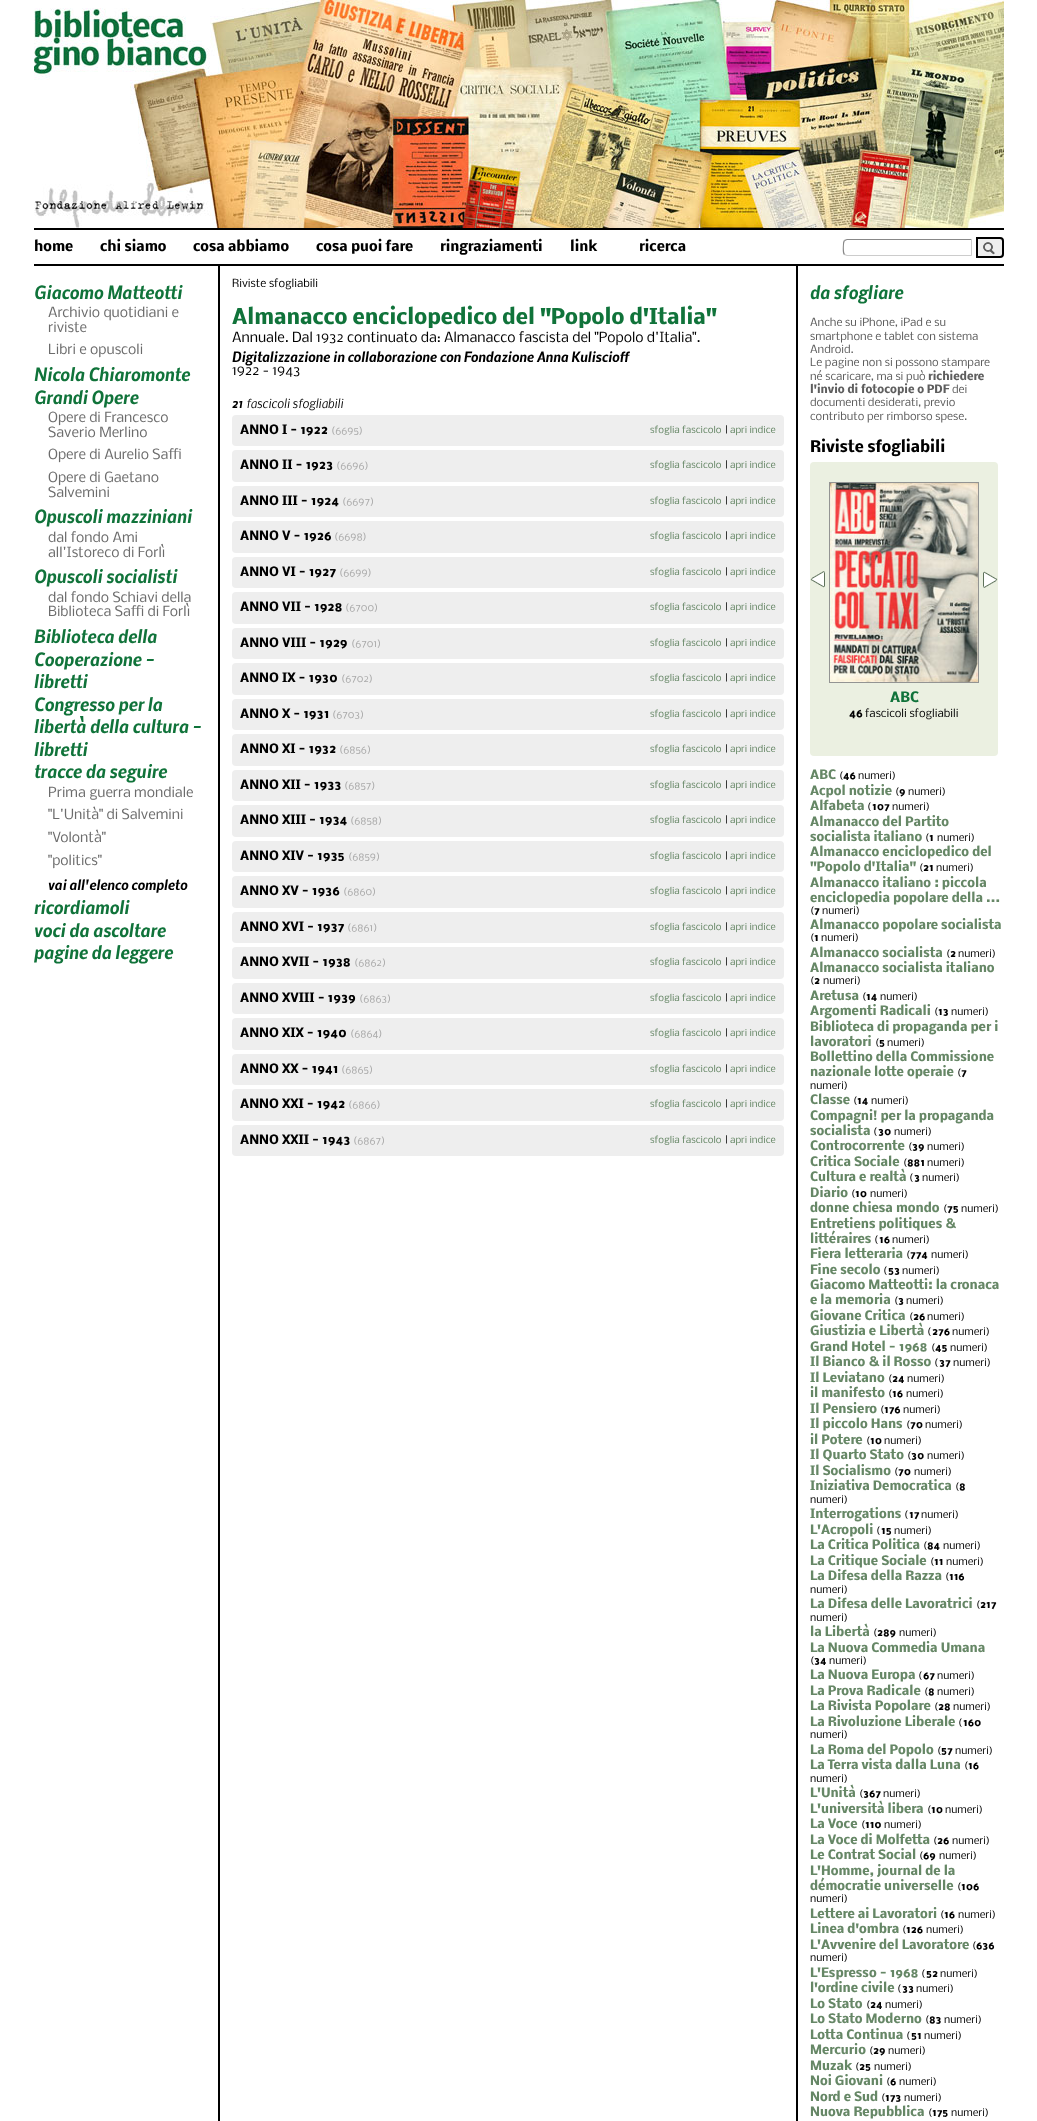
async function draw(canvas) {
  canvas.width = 1037
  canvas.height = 2121
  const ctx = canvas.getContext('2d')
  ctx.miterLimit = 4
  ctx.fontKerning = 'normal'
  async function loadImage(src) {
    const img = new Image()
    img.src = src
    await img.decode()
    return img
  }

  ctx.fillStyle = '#fff'
  ctx.fillRect(0, 0, 1037, 2121)
  ctx.drawImage(await loadImage('image0.png'), 34, 0, 970, 228)
  ctx.fillStyle = '#000'
  ctx.fillRect(34, 228, 970, 2)
  ctx.font = 'bold 13.35px Nobile'
  ctx.fillText('home', 34, 251)
  ctx.fillText('chi siamo', 100, 251)
  ctx.fillText('cosa abbiamo', 193, 251)
  ctx.fillText('cosa puoi fare', 316, 251)
  ctx.fillText('ringraziamenti', 440, 251)
  ctx.fillText('link', 570, 251)
  ctx.fillText('ricerca', 639, 251)
  ctx.fillStyle = '#888'
  ctx.beginPath()
  ctx.moveTo(847, 239)
  ctx.lineTo(844, 240)
  ctx.lineTo(845, 241)
  ctx.lineTo(847, 240)
  ctx.lineTo(971, 240)
  ctx.lineTo(972, 239)
  ctx.closePath()
  ctx.fill()
  ctx.fillStyle = '#ccc'
  ctx.beginPath()
  ctx.moveTo(972, 239)
  ctx.lineTo(971, 240)
  ctx.lineTo(971, 255)
  ctx.lineTo(972, 256)
  ctx.closePath()
  ctx.fill()
  ctx.beginPath()
  ctx.moveTo(972, 256)
  ctx.lineTo(971, 255)
  ctx.lineTo(847, 255)
  ctx.lineTo(845, 254)
  ctx.lineTo(844, 255)
  ctx.lineTo(847, 256)
  ctx.closePath()
  ctx.fill()
  ctx.fillStyle = '#888'
  ctx.beginPath()
  ctx.moveTo(843, 243)
  ctx.bezierCurveTo(843, 246, 842, 252.5, 844, 255)
  ctx.lineTo(845, 254)
  ctx.bezierCurveTo(843.5, 253, 843.5, 242, 845, 241)
  ctx.lineTo(844, 240)
  ctx.bezierCurveTo(843.5, 241, 843, 242, 843, 243)
  ctx.closePath()
  ctx.fill()
  ctx.fillStyle = '#eee'
  ctx.beginPath()
  ctx.roundRect(976, 237, 28, 21, [0, 4, 4, 0])
  ctx.fill()
  ctx.drawImage(await loadImage('image1.png'), 983, 242, 12, 13)
  ctx.beginPath()
  ctx.roundRect(977, 238, 26, 19, [0, 3, 3, 0])
  ctx.strokeStyle = '#000'
  ctx.lineWidth = 2
  ctx.stroke()
  ctx.fillStyle = '#000'
  ctx.fillRect(34, 264, 184, 2)
  ctx.font = 'italic bold 17.25px Nobile'
  ctx.fillStyle = '#10733a'
  ctx.fillText('Giacomo Matteotti', 34, 299)
  ctx.font = '13.35px Nobile'
  ctx.fillStyle = '#6c6c6c'
  ctx.fillText('Archivio quotidiani e', 48, 317)
  ctx.fillText('riviste', 48, 332)
  ctx.fillText('Libri e opuscoli', 48, 354)
  ctx.font = 'italic bold 17.25px Nobile'
  ctx.fillStyle = '#10733a'
  ctx.fillText('Nicola Chiaromonte', 34, 381)
  ctx.fillText('Grandi Opere', 34, 404)
  ctx.font = '13.35px Nobile'
  ctx.fillStyle = '#6c6c6c'
  ctx.fillText('Opere di Francesco', 48, 422)
  ctx.fillText('Saverio Merlino', 48, 437)
  ctx.fillText('Opere di Aurelio Saffi', 48, 459)
  ctx.fillText('Opere di Gaetano', 48, 482)
  ctx.fillText('Salvemini', 48, 497)
  ctx.font = 'italic bold 17.25px Nobile'
  ctx.fillStyle = '#10733a'
  ctx.fillText('Opuscoli mazziniani', 34, 523)
  ctx.font = '13.35px Nobile'
  ctx.fillStyle = '#6c6c6c'
  ctx.fillText('dal fondo Ami', 48, 542)
  ctx.fillText('all\'Istoreco di Forlì', 48, 557)
  ctx.font = 'italic bold 17.25px Nobile'
  ctx.fillStyle = '#10733a'
  ctx.fillText('Opuscoli socialisti', 34, 583)
  ctx.font = '13.35px Nobile'
  ctx.fillStyle = '#6c6c6c'
  ctx.fillText('dal fondo Schiavi della', 48, 602)
  ctx.fillText('Biblioteca Saffi di Forlì', 48, 616)
  ctx.font = 'italic bold 17.25px Nobile'
  ctx.fillStyle = '#10733a'
  ctx.fillText('Biblioteca della', 34, 643)
  ctx.fillText('Cooperazione -', 34, 666)
  ctx.fillText('libretti', 34, 688)
  ctx.fillText('Congresso per la', 34, 711)
  ctx.fillText('libertà della cultura -', 34, 733)
  ctx.fillText('libretti', 34, 756)
  ctx.fillText('tracce da seguire', 34, 778)
  ctx.font = '13.35px Nobile'
  ctx.fillStyle = '#6c6c6c'
  ctx.fillText('Prima guerra mondiale', 48, 797)
  ctx.fillText('"L\'Unità" di Salvemini', 48, 819)
  ctx.fillText('"Volontà"', 48, 842)
  ctx.fillText('"politics"', 48, 865)
  ctx.font = 'italic bold 13.35px Nobile'
  ctx.fillStyle = '#000'
  ctx.fillText('vai all\'elenco completo', 48, 890)
  ctx.font = 'italic bold 17.25px Nobile'
  ctx.fillStyle = '#10733a'
  ctx.fillText('ricordiamoli', 34, 914)
  ctx.fillText('voci da ascoltare', 34, 937)
  ctx.fillText('pagine da leggere', 34, 959)
  ctx.fillStyle = '#000'
  ctx.fillRect(796, 264, 2, 1857)
  ctx.fillRect(218, 264, 2, 1857)
  ctx.fillRect(220, 264, 576, 2)
  ctx.font = '10.7px Nobile'
  ctx.fillText('Riviste sfogliabili', 232, 287)
  ctx.font = 'bold 20px Nobile'
  ctx.fillStyle = '#10733a'
  ctx.fillText('Almanacco enciclopedico del "Popolo d\'Italia"', 232, 324)
  ctx.font = '13.35px Nobile'
  ctx.fillStyle = '#000'
  ctx.fillText('Annuale. Dal 1932 continuato da: Almanacco fascista del "Popolo d\'Italia".', 232, 342)
  ctx.font = 'italic bold 13.35px Nobile'
  ctx.fillText('Digitalizzazione in collaborazione con Fondazione Anna Kuliscioff', 232, 362)
  ctx.font = '13.35px Nobile'
  ctx.fillText('1922 - 1943', 232, 375)
  ctx.font = 'italic bold 12px Nobile'
  ctx.fillText('21', 232, 408)
  ctx.font = 'italic 12px Nobile'
  ctx.fillText('fascicoli sfogliabili', 246, 408)
  ctx.fillStyle = '#eee'
  ctx.beginPath()
  ctx.roundRect(232, 415, 552, 31, 4)
  ctx.fill()
  ctx.font = 'bold 12px Nobile'
  ctx.fillStyle = '#000'
  ctx.fillText('ANNO I - 1922', 240, 434)
  ctx.font = '10px Nobile'
  ctx.fillStyle = '#aaa'
  ctx.fillText('(6695)', 331, 434)
  ctx.font = '9.25px Nobile'
  ctx.fillStyle = '#668766'
  ctx.fillText('sfoglia fascicolo', 650, 433)
  ctx.fillStyle = '#000'
  ctx.fillText('|', 725, 433)
  ctx.fillStyle = '#668766'
  ctx.fillText('apri indice', 730, 433)
  ctx.fillStyle = '#eee'
  ctx.beginPath()
  ctx.roundRect(232, 450, 552, 32, 4)
  ctx.fill()
  ctx.font = 'bold 12px Nobile'
  ctx.fillStyle = '#000'
  ctx.fillText('ANNO II - 1923', 240, 469)
  ctx.font = '10px Nobile'
  ctx.fillStyle = '#aaa'
  ctx.fillText('(6696)', 336, 469)
  ctx.font = '9.25px Nobile'
  ctx.fillStyle = '#668766'
  ctx.fillText('sfoglia fascicolo', 650, 468)
  ctx.fillStyle = '#000'
  ctx.fillText('|', 725, 468)
  ctx.fillStyle = '#668766'
  ctx.fillText('apri indice', 730, 468)
  ctx.fillStyle = '#eee'
  ctx.beginPath()
  ctx.roundRect(232, 486, 552, 31, 4)
  ctx.fill()
  ctx.font = 'bold 12px Nobile'
  ctx.fillStyle = '#000'
  ctx.fillText('ANNO III - 1924', 240, 505)
  ctx.font = '10px Nobile'
  ctx.fillStyle = '#aaa'
  ctx.fillText('(6697)', 342, 505)
  ctx.font = '9.25px Nobile'
  ctx.fillStyle = '#668766'
  ctx.fillText('sfoglia fascicolo', 650, 504)
  ctx.fillStyle = '#000'
  ctx.fillText('|', 725, 504)
  ctx.fillStyle = '#668766'
  ctx.fillText('apri indice', 730, 504)
  ctx.fillStyle = '#eee'
  ctx.beginPath()
  ctx.roundRect(232, 521, 552, 32, 4)
  ctx.fill()
  ctx.font = 'bold 12px Nobile'
  ctx.fillStyle = '#000'
  ctx.fillText('ANNO V - 1926', 240, 540)
  ctx.font = '10px Nobile'
  ctx.fillStyle = '#aaa'
  ctx.fillText('(6698)', 334, 540)
  ctx.font = '9.25px Nobile'
  ctx.fillStyle = '#668766'
  ctx.fillText('sfoglia fascicolo', 650, 539)
  ctx.fillStyle = '#000'
  ctx.fillText('|', 725, 539)
  ctx.fillStyle = '#668766'
  ctx.fillText('apri indice', 730, 539)
  ctx.fillStyle = '#eee'
  ctx.beginPath()
  ctx.roundRect(232, 557, 552, 31, 4)
  ctx.fill()
  ctx.font = 'bold 12px Nobile'
  ctx.fillStyle = '#000'
  ctx.fillText('ANNO VI - 1927', 240, 576)
  ctx.font = '10px Nobile'
  ctx.fillStyle = '#aaa'
  ctx.fillText('(6699)', 339, 576)
  ctx.font = '9.25px Nobile'
  ctx.fillStyle = '#668766'
  ctx.fillText('sfoglia fascicolo', 650, 575)
  ctx.fillStyle = '#000'
  ctx.fillText('|', 725, 575)
  ctx.fillStyle = '#668766'
  ctx.fillText('apri indice', 730, 575)
  ctx.fillStyle = '#eee'
  ctx.beginPath()
  ctx.roundRect(232, 592, 552, 32, 4)
  ctx.fill()
  ctx.font = 'bold 12px Nobile'
  ctx.fillStyle = '#000'
  ctx.fillText('ANNO VII - 1928', 240, 611)
  ctx.font = '10px Nobile'
  ctx.fillStyle = '#aaa'
  ctx.fillText('(6700)', 345, 611)
  ctx.font = '9.25px Nobile'
  ctx.fillStyle = '#668766'
  ctx.fillText('sfoglia fascicolo', 650, 610)
  ctx.fillStyle = '#000'
  ctx.fillText('|', 725, 610)
  ctx.fillStyle = '#668766'
  ctx.fillText('apri indice', 730, 610)
  ctx.fillStyle = '#eee'
  ctx.beginPath()
  ctx.roundRect(232, 628, 552, 31, 4)
  ctx.fill()
  ctx.font = 'bold 12px Nobile'
  ctx.fillStyle = '#000'
  ctx.fillText('ANNO VIII - 1929', 240, 647)
  ctx.font = '10px Nobile'
  ctx.fillStyle = '#aaa'
  ctx.fillText('(6701)', 351, 647)
  ctx.font = '9.25px Nobile'
  ctx.fillStyle = '#668766'
  ctx.fillText('sfoglia fascicolo', 650, 646)
  ctx.fillStyle = '#000'
  ctx.fillText('|', 725, 646)
  ctx.fillStyle = '#668766'
  ctx.fillText('apri indice', 730, 646)
  ctx.fillStyle = '#eee'
  ctx.beginPath()
  ctx.roundRect(232, 663, 552, 32, 4)
  ctx.fill()
  ctx.font = 'bold 12px Nobile'
  ctx.fillStyle = '#000'
  ctx.fillText('ANNO IX - 1930', 240, 682)
  ctx.font = '10px Nobile'
  ctx.fillStyle = '#aaa'
  ctx.fillText('(6702)', 341, 682)
  ctx.font = '9.25px Nobile'
  ctx.fillStyle = '#668766'
  ctx.fillText('sfoglia fascicolo', 650, 681)
  ctx.fillStyle = '#000'
  ctx.fillText('|', 725, 681)
  ctx.fillStyle = '#668766'
  ctx.fillText('apri indice', 730, 681)
  ctx.fillStyle = '#eee'
  ctx.beginPath()
  ctx.roundRect(232, 699, 552, 31, 4)
  ctx.fill()
  ctx.font = 'bold 12px Nobile'
  ctx.fillStyle = '#000'
  ctx.fillText('ANNO X - 1931', 240, 718)
  ctx.font = '10px Nobile'
  ctx.fillStyle = '#aaa'
  ctx.fillText('(6703)', 332, 718)
  ctx.font = '9.25px Nobile'
  ctx.fillStyle = '#668766'
  ctx.fillText('sfoglia fascicolo', 650, 717)
  ctx.fillStyle = '#000'
  ctx.fillText('|', 725, 717)
  ctx.fillStyle = '#668766'
  ctx.fillText('apri indice', 730, 717)
  ctx.fillStyle = '#eee'
  ctx.beginPath()
  ctx.roundRect(232, 734, 552, 32, 4)
  ctx.fill()
  ctx.font = 'bold 12px Nobile'
  ctx.fillStyle = '#000'
  ctx.fillText('ANNO XI - 1932', 240, 753)
  ctx.font = '10px Nobile'
  ctx.fillStyle = '#aaa'
  ctx.fillText('(6856)', 339, 753)
  ctx.font = '9.25px Nobile'
  ctx.fillStyle = '#668766'
  ctx.fillText('sfoglia fascicolo', 650, 752)
  ctx.fillStyle = '#000'
  ctx.fillText('|', 725, 752)
  ctx.fillStyle = '#668766'
  ctx.fillText('apri indice', 730, 752)
  ctx.fillStyle = '#eee'
  ctx.beginPath()
  ctx.roundRect(232, 770, 552, 31, 4)
  ctx.fill()
  ctx.font = 'bold 12px Nobile'
  ctx.fillStyle = '#000'
  ctx.fillText('ANNO XII - 1933', 240, 789)
  ctx.font = '10px Nobile'
  ctx.fillStyle = '#aaa'
  ctx.fillText('(6857)', 344, 789)
  ctx.font = '9.25px Nobile'
  ctx.fillStyle = '#668766'
  ctx.fillText('sfoglia fascicolo', 650, 788)
  ctx.fillStyle = '#000'
  ctx.fillText('|', 725, 788)
  ctx.fillStyle = '#668766'
  ctx.fillText('apri indice', 730, 788)
  ctx.fillStyle = '#eee'
  ctx.beginPath()
  ctx.roundRect(232, 805, 552, 32, 4)
  ctx.fill()
  ctx.font = 'bold 12px Nobile'
  ctx.fillStyle = '#000'
  ctx.fillText('ANNO XIII - 1934', 240, 824)
  ctx.font = '10px Nobile'
  ctx.fillStyle = '#aaa'
  ctx.fillText('(6858)', 350, 824)
  ctx.font = '9.25px Nobile'
  ctx.fillStyle = '#668766'
  ctx.fillText('sfoglia fascicolo', 650, 823)
  ctx.fillStyle = '#000'
  ctx.fillText('|', 725, 823)
  ctx.fillStyle = '#668766'
  ctx.fillText('apri indice', 730, 823)
  ctx.fillStyle = '#eee'
  ctx.beginPath()
  ctx.roundRect(232, 841, 552, 31, 4)
  ctx.fill()
  ctx.font = 'bold 12px Nobile'
  ctx.fillStyle = '#000'
  ctx.fillText('ANNO XIV - 1935', 240, 860)
  ctx.font = '10px Nobile'
  ctx.fillStyle = '#aaa'
  ctx.fillText('(6859)', 348, 860)
  ctx.font = '9.25px Nobile'
  ctx.fillStyle = '#668766'
  ctx.fillText('sfoglia fascicolo', 650, 859)
  ctx.fillStyle = '#000'
  ctx.fillText('|', 725, 859)
  ctx.fillStyle = '#668766'
  ctx.fillText('apri indice', 730, 859)
  ctx.fillStyle = '#eee'
  ctx.beginPath()
  ctx.roundRect(232, 876, 552, 32, 4)
  ctx.fill()
  ctx.font = 'bold 12px Nobile'
  ctx.fillStyle = '#000'
  ctx.fillText('ANNO XV - 1936', 240, 895)
  ctx.font = '10px Nobile'
  ctx.fillStyle = '#aaa'
  ctx.fillText('(6860)', 343, 895)
  ctx.font = '9.25px Nobile'
  ctx.fillStyle = '#668766'
  ctx.fillText('sfoglia fascicolo', 650, 894)
  ctx.fillStyle = '#000'
  ctx.fillText('|', 725, 894)
  ctx.fillStyle = '#668766'
  ctx.fillText('apri indice', 730, 894)
  ctx.fillStyle = '#eee'
  ctx.beginPath()
  ctx.roundRect(232, 912, 552, 31, 4)
  ctx.fill()
  ctx.font = 'bold 12px Nobile'
  ctx.fillStyle = '#000'
  ctx.fillText('ANNO XVI - 1937', 240, 931)
  ctx.font = '10px Nobile'
  ctx.fillStyle = '#aaa'
  ctx.fillText('(6861)', 347, 931)
  ctx.font = '9.25px Nobile'
  ctx.fillStyle = '#668766'
  ctx.fillText('sfoglia fascicolo', 650, 930)
  ctx.fillStyle = '#000'
  ctx.fillText('|', 725, 930)
  ctx.fillStyle = '#668766'
  ctx.fillText('apri indice', 730, 930)
  ctx.fillStyle = '#eee'
  ctx.beginPath()
  ctx.roundRect(232, 947, 552, 32, 4)
  ctx.fill()
  ctx.font = 'bold 12px Nobile'
  ctx.fillStyle = '#000'
  ctx.fillText('ANNO XVII - 1938', 240, 966)
  ctx.font = '10px Nobile'
  ctx.fillStyle = '#aaa'
  ctx.fillText('(6862)', 354, 966)
  ctx.font = '9.25px Nobile'
  ctx.fillStyle = '#668766'
  ctx.fillText('sfoglia fascicolo', 650, 965)
  ctx.fillStyle = '#000'
  ctx.fillText('|', 725, 965)
  ctx.fillStyle = '#668766'
  ctx.fillText('apri indice', 730, 965)
  ctx.fillStyle = '#eee'
  ctx.beginPath()
  ctx.roundRect(232, 983, 552, 31, 4)
  ctx.fill()
  ctx.font = 'bold 12px Nobile'
  ctx.fillStyle = '#000'
  ctx.fillText('ANNO XVIII - 1939', 240, 1002)
  ctx.font = '10px Nobile'
  ctx.fillStyle = '#aaa'
  ctx.fillText('(6863)', 359, 1002)
  ctx.font = '9.25px Nobile'
  ctx.fillStyle = '#668766'
  ctx.fillText('sfoglia fascicolo', 650, 1001)
  ctx.fillStyle = '#000'
  ctx.fillText('|', 725, 1001)
  ctx.fillStyle = '#668766'
  ctx.fillText('apri indice', 730, 1001)
  ctx.fillStyle = '#eee'
  ctx.beginPath()
  ctx.roundRect(232, 1018, 552, 32, 4)
  ctx.fill()
  ctx.font = 'bold 12px Nobile'
  ctx.fillStyle = '#000'
  ctx.fillText('ANNO XIX - 1940', 240, 1037)
  ctx.font = '10px Nobile'
  ctx.fillStyle = '#aaa'
  ctx.fillText('(6864)', 350, 1037)
  ctx.font = '9.25px Nobile'
  ctx.fillStyle = '#668766'
  ctx.fillText('sfoglia fascicolo', 650, 1036)
  ctx.fillStyle = '#000'
  ctx.fillText('|', 725, 1036)
  ctx.fillStyle = '#668766'
  ctx.fillText('apri indice', 730, 1036)
  ctx.fillStyle = '#eee'
  ctx.beginPath()
  ctx.roundRect(232, 1054, 552, 31, 4)
  ctx.fill()
  ctx.font = 'bold 12px Nobile'
  ctx.fillStyle = '#000'
  ctx.fillText('ANNO XX - 1941', 240, 1073)
  ctx.font = '10px Nobile'
  ctx.fillStyle = '#aaa'
  ctx.fillText('(6865)', 341, 1073)
  ctx.font = '9.25px Nobile'
  ctx.fillStyle = '#668766'
  ctx.fillText('sfoglia fascicolo', 650, 1072)
  ctx.fillStyle = '#000'
  ctx.fillText('|', 725, 1072)
  ctx.fillStyle = '#668766'
  ctx.fillText('apri indice', 730, 1072)
  ctx.fillStyle = '#eee'
  ctx.beginPath()
  ctx.roundRect(232, 1089, 552, 32, 4)
  ctx.fill()
  ctx.font = 'bold 12px Nobile'
  ctx.fillStyle = '#000'
  ctx.fillText('ANNO XXI - 1942', 240, 1108)
  ctx.font = '10px Nobile'
  ctx.fillStyle = '#aaa'
  ctx.fillText('(6866)', 348, 1108)
  ctx.font = '9.25px Nobile'
  ctx.fillStyle = '#668766'
  ctx.fillText('sfoglia fascicolo', 650, 1107)
  ctx.fillStyle = '#000'
  ctx.fillText('|', 725, 1107)
  ctx.fillStyle = '#668766'
  ctx.fillText('apri indice', 730, 1107)
  ctx.fillStyle = '#eee'
  ctx.beginPath()
  ctx.roundRect(232, 1125, 552, 31, 4)
  ctx.fill()
  ctx.font = 'bold 12px Nobile'
  ctx.fillStyle = '#000'
  ctx.fillText('ANNO XXII - 1943', 240, 1144)
  ctx.font = '10px Nobile'
  ctx.fillStyle = '#aaa'
  ctx.fillText('(6867)', 353, 1144)
  ctx.font = '9.25px Nobile'
  ctx.fillStyle = '#668766'
  ctx.fillText('sfoglia fascicolo', 650, 1143)
  ctx.fillStyle = '#000'
  ctx.fillText('|', 725, 1143)
  ctx.fillStyle = '#668766'
  ctx.fillText('apri indice', 730, 1143)
  ctx.fillStyle = '#000'
  ctx.fillRect(798, 264, 206, 2)
  ctx.font = 'italic bold 17.25px Nobile'
  ctx.fillStyle = '#10733a'
  ctx.fillText('da sfogliare', 810, 299)
  ctx.font = '10.7px Nobile'
  ctx.fillStyle = '#5e5e5e'
  ctx.fillText('Anche su iPhone, iPad e su', 810, 326)
  ctx.fillText('smartphone e tablet con sistema', 810, 340)
  ctx.fillText('Android.', 810, 353)
  ctx.fillText('Le pagine non si possono stampare', 810, 366)
  ctx.fillText('né scaricare, ma si può', 810, 380)
  ctx.font = 'bold 10.7px Nobile'
  ctx.fillText('richiedere', 928, 380)
  ctx.fillText('l\'invio di fotocopie o PDF', 810, 393)
  ctx.font = '10.7px Nobile'
  ctx.fillText('dei', 952, 393)
  ctx.fillText('documenti desiderati, previo', 810, 406)
  ctx.fillText('contributo per rimborso spese.', 810, 420)
  ctx.font = 'bold 14.75px Nobile'
  ctx.fillStyle = '#000'
  ctx.fillText('Riviste sfogliabili', 810, 452)
  ctx.fillStyle = '#ebf0e1'
  ctx.beginPath()
  ctx.roundRect(810, 462, 188, 294, 4)
  ctx.fill()
  ctx.drawImage(await loadImage('image2.png'), 810, 571, 15, 17)
  ctx.drawImage(await loadImage('image3.png'), 983, 571, 15, 17)
  ctx.strokeStyle = '#939493'
  ctx.lineWidth = 1
  ctx.strokeRect(829.5, 482.5, 149, 200)
  ctx.drawImage(await loadImage('image4.png'), 830, 483, 148, 199)
  ctx.font = 'bold 13.35px Nobile'
  ctx.fillStyle = '#10733a'
  ctx.fillText('ABC', 890, 702)
  ctx.font = 'bold 10.7px Nobile'
  ctx.fillStyle = '#000'
  ctx.fillText('46', 849, 717)
  ctx.font = '10.7px Nobile'
  ctx.fillText('fascicoli sfogliabili', 865, 717)
  ctx.font = 'bold 12px Nobile'
  ctx.fillStyle = '#668766'
  ctx.fillText('ABC', 810, 779)
  ctx.font = '10px Nobile'
  ctx.fillStyle = '#000'
  ctx.fillText('(', 839, 779)
  ctx.font = 'bold 10px Nobile'
  ctx.fillText('46', 843, 779)
  ctx.font = '10px Nobile'
  ctx.fillText('numeri)', 858, 779)
  ctx.font = 'bold 12px Nobile'
  ctx.fillStyle = '#668766'
  ctx.fillText('Acpol notizie', 810, 795)
  ctx.font = '10px Nobile'
  ctx.fillStyle = '#000'
  ctx.fillText('(', 895, 795)
  ctx.font = 'bold 10px Nobile'
  ctx.fillText('9', 899, 795)
  ctx.font = '10px Nobile'
  ctx.fillText('numeri)', 908, 795)
  ctx.font = 'bold 12px Nobile'
  ctx.fillStyle = '#668766'
  ctx.fillText('Alfabeta', 810, 810)
  ctx.font = '10px Nobile'
  ctx.fillStyle = '#000'
  ctx.fillText('(', 867, 810)
  ctx.font = 'bold 10px Nobile'
  ctx.fillText('107', 872, 810)
  ctx.font = '10px Nobile'
  ctx.fillText('numeri)', 892, 810)
  ctx.font = 'bold 12px Nobile'
  ctx.fillStyle = '#668766'
  ctx.fillText('Almanacco del Partito', 810, 826)
  ctx.fillText('socialista italiano', 810, 841)
  ctx.font = '10px Nobile'
  ctx.fillStyle = '#000'
  ctx.fillText('(', 925, 841)
  ctx.font = 'bold 10px Nobile'
  ctx.fillText('1', 929, 841)
  ctx.font = '10px Nobile'
  ctx.fillText('numeri)', 937, 841)
  ctx.font = 'bold 12px Nobile'
  ctx.fillStyle = '#668766'
  ctx.fillText('Almanacco enciclopedico del', 810, 856)
  ctx.fillText('"Popolo d\'Italia"', 810, 871)
  ctx.font = '10px Nobile'
  ctx.fillStyle = '#000'
  ctx.fillText('(', 919, 871)
  ctx.font = 'bold 10px Nobile'
  ctx.fillText('21', 923, 871)
  ctx.font = '10px Nobile'
  ctx.fillText('numeri)', 936, 871)
  ctx.font = 'bold 12px Nobile'
  ctx.fillStyle = '#668766'
  ctx.fillText('Almanacco italiano : piccola', 810, 887)
  ctx.fillText('enciclopedia popolare della ...', 810, 902)
  ctx.font = '10px Nobile'
  ctx.fillStyle = '#000'
  ctx.fillText('(', 810, 914)
  ctx.font = 'bold 10px Nobile'
  ctx.fillText('7', 814, 914)
  ctx.font = '10px Nobile'
  ctx.fillText('numeri)', 822, 914)
  ctx.font = 'bold 12px Nobile'
  ctx.fillStyle = '#668766'
  ctx.fillText('Almanacco popolare socialista', 810, 929)
  ctx.font = '10px Nobile'
  ctx.fillStyle = '#000'
  ctx.fillText('(', 810, 941)
  ctx.font = 'bold 10px Nobile'
  ctx.fillText('1', 814, 941)
  ctx.font = '10px Nobile'
  ctx.fillText('numeri)', 821, 941)
  ctx.font = 'bold 12px Nobile'
  ctx.fillStyle = '#668766'
  ctx.fillText('Almanacco socialista', 810, 957)
  ctx.font = '10px Nobile'
  ctx.fillStyle = '#000'
  ctx.fillText('(', 946, 957)
  ctx.font = 'bold 10px Nobile'
  ctx.fillText('2', 950, 957)
  ctx.font = '10px Nobile'
  ctx.fillText('numeri)', 958, 957)
  ctx.font = 'bold 12px Nobile'
  ctx.fillStyle = '#668766'
  ctx.fillText('Almanacco socialista italiano', 810, 972)
  ctx.font = '10px Nobile'
  ctx.fillStyle = '#000'
  ctx.fillText('(', 810, 984)
  ctx.font = 'bold 10px Nobile'
  ctx.fillText('2', 814, 984)
  ctx.font = '10px Nobile'
  ctx.fillText('numeri)', 823, 984)
  ctx.font = 'bold 12px Nobile'
  ctx.fillStyle = '#668766'
  ctx.fillText('Aretusa', 810, 1000)
  ctx.font = '10px Nobile'
  ctx.fillStyle = '#000'
  ctx.fillText('(', 862, 1000)
  ctx.font = 'bold 10px Nobile'
  ctx.fillText('14', 866, 1000)
  ctx.font = '10px Nobile'
  ctx.fillText('numeri)', 880, 1000)
  ctx.font = 'bold 12px Nobile'
  ctx.fillStyle = '#668766'
  ctx.fillText('Argomenti Radicali', 810, 1015)
  ctx.font = '10px Nobile'
  ctx.fillStyle = '#000'
  ctx.fillText('(', 934, 1015)
  ctx.font = 'bold 10px Nobile'
  ctx.fillText('13', 938, 1015)
  ctx.font = '10px Nobile'
  ctx.fillText('numeri)', 951, 1015)
  ctx.font = 'bold 12px Nobile'
  ctx.fillStyle = '#668766'
  ctx.fillText('Biblioteca di propaganda per i', 810, 1031)
  ctx.fillText('lavoratori', 810, 1046)
  ctx.font = '10px Nobile'
  ctx.fillStyle = '#000'
  ctx.fillText('(', 875, 1046)
  ctx.font = 'bold 10px Nobile'
  ctx.fillText('5', 879, 1046)
  ctx.font = '10px Nobile'
  ctx.fillText('numeri)', 887, 1046)
  ctx.font = 'bold 12px Nobile'
  ctx.fillStyle = '#668766'
  ctx.fillText('Bollettino della Commissione', 810, 1061)
  ctx.fillText('nazionale lotte operaie', 810, 1076)
  ctx.font = '10px Nobile'
  ctx.fillStyle = '#000'
  ctx.fillText('(', 957, 1076)
  ctx.font = 'bold 10px Nobile'
  ctx.fillText('7', 961, 1076)
  ctx.font = '10px Nobile'
  ctx.fillText('numeri)', 810, 1089)
  ctx.font = 'bold 12px Nobile'
  ctx.fillStyle = '#668766'
  ctx.fillText('Classe', 810, 1104)
  ctx.font = '10px Nobile'
  ctx.fillStyle = '#000'
  ctx.fillText('(', 853, 1104)
  ctx.font = 'bold 10px Nobile'
  ctx.fillText('14', 857, 1104)
  ctx.font = '10px Nobile'
  ctx.fillText('numeri)', 871, 1104)
  ctx.font = 'bold 12px Nobile'
  ctx.fillStyle = '#668766'
  ctx.fillText('Compagni! per la propaganda', 810, 1120)
  ctx.fillText('socialista', 810, 1135)
  ctx.font = '10px Nobile'
  ctx.fillStyle = '#000'
  ctx.fillText('(', 873, 1135)
  ctx.font = 'bold 10px Nobile'
  ctx.fillText('30', 878, 1135)
  ctx.font = '10px Nobile'
  ctx.fillText('numeri)', 894, 1135)
  ctx.font = 'bold 12px Nobile'
  ctx.fillStyle = '#668766'
  ctx.fillText('Controcorrente', 810, 1150)
  ctx.font = '10px Nobile'
  ctx.fillStyle = '#000'
  ctx.fillText('(', 908, 1150)
  ctx.font = 'bold 10px Nobile'
  ctx.fillText('39', 912, 1150)
  ctx.font = '10px Nobile'
  ctx.fillText('numeri)', 927, 1150)
  ctx.font = 'bold 12px Nobile'
  ctx.fillStyle = '#668766'
  ctx.fillText('Critica Sociale', 810, 1166)
  ctx.font = '10px Nobile'
  ctx.fillStyle = '#000'
  ctx.fillText('(', 903, 1166)
  ctx.font = 'bold 10px Nobile'
  ctx.fillText('881', 907, 1166)
  ctx.font = '10px Nobile'
  ctx.fillText('numeri)', 927, 1166)
  ctx.font = 'bold 12px Nobile'
  ctx.fillStyle = '#668766'
  ctx.fillText('Cultura e realtà', 810, 1181)
  ctx.font = '10px Nobile'
  ctx.fillStyle = '#000'
  ctx.fillText('(', 909, 1181)
  ctx.font = 'bold 10px Nobile'
  ctx.fillText('3', 914, 1181)
  ctx.font = '10px Nobile'
  ctx.fillText('numeri)', 922, 1181)
  ctx.font = 'bold 12px Nobile'
  ctx.fillStyle = '#668766'
  ctx.fillText('Diario', 810, 1197)
  ctx.font = '10px Nobile'
  ctx.fillStyle = '#000'
  ctx.fillText('(', 851, 1197)
  ctx.font = 'bold 10px Nobile'
  ctx.fillText('10', 855, 1197)
  ctx.font = '10px Nobile'
  ctx.fillText('numeri)', 870, 1197)
  ctx.font = 'bold 12px Nobile'
  ctx.fillStyle = '#668766'
  ctx.fillText('donne chiesa mondo', 810, 1212)
  ctx.font = '10px Nobile'
  ctx.fillStyle = '#000'
  ctx.fillText('(', 943, 1212)
  ctx.font = 'bold 10px Nobile'
  ctx.fillText('75', 947, 1212)
  ctx.font = '10px Nobile'
  ctx.fillText('numeri)', 961, 1212)
  ctx.font = 'bold 12px Nobile'
  ctx.fillStyle = '#668766'
  ctx.fillText('Entretiens politiques &', 810, 1228)
  ctx.fillText('littéraires', 810, 1243)
  ctx.font = '10px Nobile'
  ctx.fillStyle = '#000'
  ctx.fillText('(', 874, 1243)
  ctx.font = 'bold 10px Nobile'
  ctx.fillText('16', 879, 1243)
  ctx.font = '10px Nobile'
  ctx.fillText('numeri)', 892, 1243)
  ctx.font = 'bold 12px Nobile'
  ctx.fillStyle = '#668766'
  ctx.fillText('Fiera letteraria', 810, 1258)
  ctx.font = '10px Nobile'
  ctx.fillStyle = '#000'
  ctx.fillText('(', 906, 1258)
  ctx.font = 'bold 10px Nobile'
  ctx.fillText('774', 910, 1258)
  ctx.font = '10px Nobile'
  ctx.fillText('numeri)', 931, 1258)
  ctx.font = 'bold 12px Nobile'
  ctx.fillStyle = '#668766'
  ctx.fillText('Fine secolo', 810, 1274)
  ctx.font = '10px Nobile'
  ctx.fillStyle = '#000'
  ctx.fillText('(', 883, 1274)
  ctx.font = 'bold 10px Nobile'
  ctx.fillText('53', 888, 1274)
  ctx.font = '10px Nobile'
  ctx.fillText('numeri)', 902, 1274)
  ctx.font = 'bold 12px Nobile'
  ctx.fillStyle = '#668766'
  ctx.fillText('Giacomo Matteotti: la cronaca', 810, 1289)
  ctx.fillText('e la memoria', 810, 1304)
  ctx.font = '10px Nobile'
  ctx.fillStyle = '#000'
  ctx.fillText('(', 894, 1304)
  ctx.font = 'bold 10px Nobile'
  ctx.fillText('3', 898, 1304)
  ctx.font = '10px Nobile'
  ctx.fillText('numeri)', 906, 1304)
  ctx.font = 'bold 12px Nobile'
  ctx.fillStyle = '#668766'
  ctx.fillText('Giovane Critica', 810, 1320)
  ctx.font = '10px Nobile'
  ctx.fillStyle = '#000'
  ctx.fillText('(', 909, 1320)
  ctx.font = 'bold 10px Nobile'
  ctx.fillText('26', 913, 1320)
  ctx.font = '10px Nobile'
  ctx.fillText('numeri)', 927, 1320)
  ctx.font = 'bold 12px Nobile'
  ctx.fillStyle = '#668766'
  ctx.fillText('Giustizia e Libertà', 810, 1335)
  ctx.font = '10px Nobile'
  ctx.fillStyle = '#000'
  ctx.fillText('(', 927, 1335)
  ctx.font = 'bold 10px Nobile'
  ctx.fillText('276', 932, 1335)
  ctx.font = '10px Nobile'
  ctx.fillText('numeri)', 952, 1335)
  ctx.font = 'bold 12px Nobile'
  ctx.fillStyle = '#668766'
  ctx.fillText('Grand Hotel - 1968', 810, 1351)
  ctx.font = '10px Nobile'
  ctx.fillStyle = '#000'
  ctx.fillText('(', 931, 1351)
  ctx.font = 'bold 10px Nobile'
  ctx.fillText('45', 935, 1351)
  ctx.font = '10px Nobile'
  ctx.fillText('numeri)', 950, 1351)
  ctx.font = 'bold 12px Nobile'
  ctx.fillStyle = '#668766'
  ctx.fillText('Il Bianco & il Rosso', 810, 1366)
  ctx.font = '10px Nobile'
  ctx.fillStyle = '#000'
  ctx.fillText('(', 934, 1366)
  ctx.font = 'bold 10px Nobile'
  ctx.fillText('37', 939, 1366)
  ctx.font = '10px Nobile'
  ctx.fillText('numeri)', 953, 1366)
  ctx.font = 'bold 12px Nobile'
  ctx.fillStyle = '#668766'
  ctx.fillText('Il Leviatano', 810, 1382)
  ctx.font = '10px Nobile'
  ctx.fillStyle = '#000'
  ctx.fillText('(', 888, 1382)
  ctx.font = 'bold 10px Nobile'
  ctx.fillText('24', 892, 1382)
  ctx.font = '10px Nobile'
  ctx.fillText('numeri)', 907, 1382)
  ctx.font = 'bold 12px Nobile'
  ctx.fillStyle = '#668766'
  ctx.fillText('il manifesto', 810, 1397)
  ctx.font = '10px Nobile'
  ctx.fillStyle = '#000'
  ctx.fillText('(', 888, 1397)
  ctx.font = 'bold 10px Nobile'
  ctx.fillText('16', 892, 1397)
  ctx.font = '10px Nobile'
  ctx.fillText('numeri)', 906, 1397)
  ctx.font = 'bold 12px Nobile'
  ctx.fillStyle = '#668766'
  ctx.fillText('Il Pensiero', 810, 1413)
  ctx.font = '10px Nobile'
  ctx.fillStyle = '#000'
  ctx.fillText('(', 880, 1413)
  ctx.font = 'bold 10px Nobile'
  ctx.fillText('176', 884, 1413)
  ctx.font = '10px Nobile'
  ctx.fillText('numeri)', 903, 1413)
  ctx.font = 'bold 12px Nobile'
  ctx.fillStyle = '#668766'
  ctx.fillText('Il piccolo Hans', 810, 1428)
  ctx.font = '10px Nobile'
  ctx.fillStyle = '#000'
  ctx.fillText('(', 906, 1428)
  ctx.font = 'bold 10px Nobile'
  ctx.fillText('70', 910, 1428)
  ctx.font = '10px Nobile'
  ctx.fillText('numeri)', 925, 1428)
  ctx.font = 'bold 12px Nobile'
  ctx.fillStyle = '#668766'
  ctx.fillText('il Potere', 810, 1444)
  ctx.font = '10px Nobile'
  ctx.fillStyle = '#000'
  ctx.fillText('(', 866, 1444)
  ctx.font = 'bold 10px Nobile'
  ctx.fillText('10', 870, 1444)
  ctx.font = '10px Nobile'
  ctx.fillText('numeri)', 884, 1444)
  ctx.font = 'bold 12px Nobile'
  ctx.fillStyle = '#668766'
  ctx.fillText('Il Quarto Stato', 810, 1459)
  ctx.font = '10px Nobile'
  ctx.fillStyle = '#000'
  ctx.fillText('(', 907, 1459)
  ctx.font = 'bold 10px Nobile'
  ctx.fillText('30', 911, 1459)
  ctx.font = '10px Nobile'
  ctx.fillText('numeri)', 927, 1459)
  ctx.font = 'bold 12px Nobile'
  ctx.fillStyle = '#668766'
  ctx.fillText('Il Socialismo', 810, 1475)
  ctx.font = '10px Nobile'
  ctx.fillStyle = '#000'
  ctx.fillText('(', 894, 1475)
  ctx.font = 'bold 10px Nobile'
  ctx.fillText('70', 898, 1475)
  ctx.font = '10px Nobile'
  ctx.fillText('numeri)', 914, 1475)
  ctx.font = 'bold 12px Nobile'
  ctx.fillStyle = '#668766'
  ctx.fillText('Iniziativa Democratica', 810, 1490)
  ctx.font = '10px Nobile'
  ctx.fillStyle = '#000'
  ctx.fillText('(', 955, 1490)
  ctx.font = 'bold 10px Nobile'
  ctx.fillText('8', 959, 1490)
  ctx.font = '10px Nobile'
  ctx.fillText('numeri)', 810, 1503)
  ctx.font = 'bold 12px Nobile'
  ctx.fillStyle = '#668766'
  ctx.fillText('Interrogations', 810, 1518)
  ctx.font = '10px Nobile'
  ctx.fillStyle = '#000'
  ctx.fillText('(', 904, 1518)
  ctx.font = 'bold 10px Nobile'
  ctx.fillText('17', 909, 1518)
  ctx.font = '10px Nobile'
  ctx.fillText('numeri)', 921, 1518)
  ctx.font = 'bold 12px Nobile'
  ctx.fillStyle = '#668766'
  ctx.fillText('L\'Acropoli', 810, 1534)
  ctx.font = '10px Nobile'
  ctx.fillStyle = '#000'
  ctx.fillText('(', 876, 1534)
  ctx.font = 'bold 10px Nobile'
  ctx.fillText('15', 881, 1534)
  ctx.font = '10px Nobile'
  ctx.fillText('numeri)', 894, 1534)
  ctx.font = 'bold 12px Nobile'
  ctx.fillStyle = '#668766'
  ctx.fillText('La Critica Politica', 810, 1549)
  ctx.font = '10px Nobile'
  ctx.fillStyle = '#000'
  ctx.fillText('(', 923, 1549)
  ctx.font = 'bold 10px Nobile'
  ctx.fillText('84', 927, 1549)
  ctx.font = '10px Nobile'
  ctx.fillText('numeri)', 943, 1549)
  ctx.font = 'bold 12px Nobile'
  ctx.fillStyle = '#668766'
  ctx.fillText('La Critique Sociale', 810, 1565)
  ctx.font = '10px Nobile'
  ctx.fillStyle = '#000'
  ctx.fillText('(', 930, 1565)
  ctx.font = 'bold 10px Nobile'
  ctx.fillText('11', 934, 1565)
  ctx.font = '10px Nobile'
  ctx.fillText('numeri)', 946, 1565)
  ctx.font = 'bold 12px Nobile'
  ctx.fillStyle = '#668766'
  ctx.fillText('La Difesa della Razza', 810, 1580)
  ctx.font = '10px Nobile'
  ctx.fillStyle = '#000'
  ctx.fillText('(', 945, 1580)
  ctx.font = 'bold 10px Nobile'
  ctx.fillText('116', 949, 1580)
  ctx.font = '10px Nobile'
  ctx.fillText('numeri)', 810, 1593)
  ctx.font = 'bold 12px Nobile'
  ctx.fillStyle = '#668766'
  ctx.fillText('La Difesa delle Lavoratrici', 810, 1608)
  ctx.font = '10px Nobile'
  ctx.fillStyle = '#000'
  ctx.fillText('(', 976, 1608)
  ctx.font = 'bold 10px Nobile'
  ctx.fillText('217', 980, 1608)
  ctx.font = '10px Nobile'
  ctx.fillText('numeri)', 810, 1621)
  ctx.font = 'bold 12px Nobile'
  ctx.fillStyle = '#668766'
  ctx.fillText('la Libertà', 810, 1636)
  ctx.font = '10px Nobile'
  ctx.fillStyle = '#000'
  ctx.fillText('(', 873, 1636)
  ctx.font = 'bold 10px Nobile'
  ctx.fillText('289', 877, 1636)
  ctx.font = '10px Nobile'
  ctx.fillText('numeri)', 899, 1636)
  ctx.font = 'bold 12px Nobile'
  ctx.fillStyle = '#668766'
  ctx.fillText('La Nuova Commedia Umana', 810, 1652)
  ctx.font = '10px Nobile'
  ctx.fillStyle = '#000'
  ctx.fillText('(', 810, 1664)
  ctx.font = 'bold 10px Nobile'
  ctx.fillText('34', 814, 1664)
  ctx.font = '10px Nobile'
  ctx.fillText('numeri)', 829, 1664)
  ctx.font = 'bold 12px Nobile'
  ctx.fillStyle = '#668766'
  ctx.fillText('La Nuova Europa', 810, 1679)
  ctx.font = '10px Nobile'
  ctx.fillStyle = '#000'
  ctx.fillText('(', 918, 1679)
  ctx.font = 'bold 10px Nobile'
  ctx.fillText('67', 923, 1679)
  ctx.font = '10px Nobile'
  ctx.fillText('numeri)', 937, 1679)
  ctx.font = 'bold 12px Nobile'
  ctx.fillStyle = '#668766'
  ctx.fillText('La Prova Radicale', 810, 1695)
  ctx.font = '10px Nobile'
  ctx.fillStyle = '#000'
  ctx.fillText('(', 924, 1695)
  ctx.font = 'bold 10px Nobile'
  ctx.fillText('8', 928, 1695)
  ctx.font = '10px Nobile'
  ctx.fillText('numeri)', 937, 1695)
  ctx.font = 'bold 12px Nobile'
  ctx.fillStyle = '#668766'
  ctx.fillText('La Rivista Popolare', 810, 1710)
  ctx.font = '10px Nobile'
  ctx.fillStyle = '#000'
  ctx.fillText('(', 934, 1710)
  ctx.font = 'bold 10px Nobile'
  ctx.fillText('28', 938, 1710)
  ctx.font = '10px Nobile'
  ctx.fillText('numeri)', 953, 1710)
  ctx.font = 'bold 12px Nobile'
  ctx.fillStyle = '#668766'
  ctx.fillText('La Rivoluzione Liberale', 810, 1726)
  ctx.font = '10px Nobile'
  ctx.fillStyle = '#000'
  ctx.fillText('(', 958, 1726)
  ctx.font = 'bold 10px Nobile'
  ctx.fillText('160', 963, 1726)
  ctx.font = '10px Nobile'
  ctx.fillText('numeri)', 810, 1738)
  ctx.font = 'bold 12px Nobile'
  ctx.fillStyle = '#668766'
  ctx.fillText('La Roma del Popolo', 810, 1754)
  ctx.font = '10px Nobile'
  ctx.fillStyle = '#000'
  ctx.fillText('(', 937, 1754)
  ctx.font = 'bold 10px Nobile'
  ctx.fillText('57', 941, 1754)
  ctx.font = '10px Nobile'
  ctx.fillText('numeri)', 955, 1754)
  ctx.font = 'bold 12px Nobile'
  ctx.fillStyle = '#668766'
  ctx.fillText('La Terra vista dalla Luna', 810, 1769)
  ctx.font = '10px Nobile'
  ctx.fillStyle = '#000'
  ctx.fillText('(', 964, 1769)
  ctx.font = 'bold 10px Nobile'
  ctx.fillText('16', 968, 1769)
  ctx.font = '10px Nobile'
  ctx.fillText('numeri)', 810, 1782)
  ctx.font = 'bold 12px Nobile'
  ctx.fillStyle = '#668766'
  ctx.fillText('L\'Unità', 810, 1797)
  ctx.font = '10px Nobile'
  ctx.fillStyle = '#000'
  ctx.fillText('(', 859, 1797)
  ctx.font = 'bold 10px Nobile'
  ctx.fillText('367', 863, 1797)
  ctx.font = '10px Nobile'
  ctx.fillText('numeri)', 883, 1797)
  ctx.font = 'bold 12px Nobile'
  ctx.fillStyle = '#668766'
  ctx.fillText('L\'università libera', 810, 1813)
  ctx.font = '10px Nobile'
  ctx.fillStyle = '#000'
  ctx.fillText('(', 927, 1813)
  ctx.font = 'bold 10px Nobile'
  ctx.fillText('10', 931, 1813)
  ctx.font = '10px Nobile'
  ctx.fillText('numeri)', 945, 1813)
  ctx.font = 'bold 12px Nobile'
  ctx.fillStyle = '#668766'
  ctx.fillText('La Voce', 810, 1828)
  ctx.font = '10px Nobile'
  ctx.fillStyle = '#000'
  ctx.fillText('(', 861, 1828)
  ctx.font = 'bold 10px Nobile'
  ctx.fillText('110', 865, 1828)
  ctx.font = '10px Nobile'
  ctx.fillText('numeri)', 884, 1828)
  ctx.font = 'bold 12px Nobile'
  ctx.fillStyle = '#668766'
  ctx.fillText('La Voce di Molfetta', 810, 1844)
  ctx.font = '10px Nobile'
  ctx.fillStyle = '#000'
  ctx.fillText('(', 933, 1844)
  ctx.font = 'bold 10px Nobile'
  ctx.fillText('26', 937, 1844)
  ctx.font = '10px Nobile'
  ctx.fillText('numeri)', 952, 1844)
  ctx.font = 'bold 12px Nobile'
  ctx.fillStyle = '#668766'
  ctx.fillText('Le Contrat Social', 810, 1859)
  ctx.font = '10px Nobile'
  ctx.fillStyle = '#000'
  ctx.fillText('(', 919, 1859)
  ctx.font = 'bold 10px Nobile'
  ctx.fillText('69', 923, 1859)
  ctx.font = '10px Nobile'
  ctx.fillText('numeri)', 939, 1859)
  ctx.font = 'bold 12px Nobile'
  ctx.fillStyle = '#668766'
  ctx.fillText('L\'Homme, journal de la', 810, 1875)
  ctx.fillText('démocratie universelle', 810, 1890)
  ctx.font = '10px Nobile'
  ctx.fillStyle = '#000'
  ctx.fillText('(', 957, 1890)
  ctx.font = 'bold 10px Nobile'
  ctx.fillText('106', 961, 1890)
  ctx.font = '10px Nobile'
  ctx.fillText('numeri)', 810, 1902)
  ctx.font = 'bold 12px Nobile'
  ctx.fillStyle = '#668766'
  ctx.fillText('Lettere ai Lavoratori', 810, 1918)
  ctx.font = '10px Nobile'
  ctx.fillStyle = '#000'
  ctx.fillText('(', 940, 1918)
  ctx.font = 'bold 10px Nobile'
  ctx.fillText('16', 944, 1918)
  ctx.font = '10px Nobile'
  ctx.fillText('numeri)', 958, 1918)
  ctx.font = 'bold 12px Nobile'
  ctx.fillStyle = '#668766'
  ctx.fillText('Linea d\'ombra', 810, 1933)
  ctx.font = '10px Nobile'
  ctx.fillStyle = '#000'
  ctx.fillText('(', 902, 1933)
  ctx.font = 'bold 10px Nobile'
  ctx.fillText('126', 906, 1933)
  ctx.font = '10px Nobile'
  ctx.fillText('numeri)', 926, 1933)
  ctx.font = 'bold 12px Nobile'
  ctx.fillStyle = '#668766'
  ctx.fillText('L\'Avvenire del Lavoratore', 810, 1949)
  ctx.font = '10px Nobile'
  ctx.fillStyle = '#000'
  ctx.fillText('(', 972, 1949)
  ctx.font = 'bold 10px Nobile'
  ctx.fillText('636', 976, 1949)
  ctx.font = '10px Nobile'
  ctx.fillText('numeri)', 810, 1961)
  ctx.font = 'bold 12px Nobile'
  ctx.fillStyle = '#668766'
  ctx.fillText('L\'Espresso - 1968', 810, 1977)
  ctx.font = '10px Nobile'
  ctx.fillStyle = '#000'
  ctx.fillText('(', 921, 1977)
  ctx.font = 'bold 10px Nobile'
  ctx.fillText('52', 926, 1977)
  ctx.font = '10px Nobile'
  ctx.fillText('numeri)', 940, 1977)
  ctx.font = 'bold 12px Nobile'
  ctx.fillStyle = '#668766'
  ctx.fillText('l\'ordine civile', 810, 1992)
  ctx.font = '10px Nobile'
  ctx.fillStyle = '#000'
  ctx.fillText('(', 897, 1992)
  ctx.font = 'bold 10px Nobile'
  ctx.fillText('33', 902, 1992)
  ctx.font = '10px Nobile'
  ctx.fillText('numeri)', 916, 1992)
  ctx.font = 'bold 12px Nobile'
  ctx.fillStyle = '#668766'
  ctx.fillText('Lo Stato', 810, 2008)
  ctx.font = '10px Nobile'
  ctx.fillStyle = '#000'
  ctx.fillText('(', 866, 2008)
  ctx.font = 'bold 10px Nobile'
  ctx.fillText('24', 870, 2008)
  ctx.font = '10px Nobile'
  ctx.fillText('numeri)', 885, 2008)
  ctx.font = 'bold 12px Nobile'
  ctx.fillStyle = '#668766'
  ctx.fillText('Lo Stato Moderno', 810, 2023)
  ctx.font = '10px Nobile'
  ctx.fillStyle = '#000'
  ctx.fillText('(', 925, 2023)
  ctx.font = 'bold 10px Nobile'
  ctx.fillText('83', 929, 2023)
  ctx.font = '10px Nobile'
  ctx.fillText('numeri)', 944, 2023)
  ctx.font = 'bold 12px Nobile'
  ctx.fillStyle = '#668766'
  ctx.fillText('Lotta Continua', 810, 2039)
  ctx.font = '10px Nobile'
  ctx.fillStyle = '#000'
  ctx.fillText('(', 906, 2039)
  ctx.font = 'bold 10px Nobile'
  ctx.fillText('51', 911, 2039)
  ctx.font = '10px Nobile'
  ctx.fillText('numeri)', 924, 2039)
  ctx.font = 'bold 12px Nobile'
  ctx.fillStyle = '#668766'
  ctx.fillText('Mercurio', 810, 2054)
  ctx.font = '10px Nobile'
  ctx.fillStyle = '#000'
  ctx.fillText('(', 869, 2054)
  ctx.font = 'bold 10px Nobile'
  ctx.fillText('29', 873, 2054)
  ctx.font = '10px Nobile'
  ctx.fillText('numeri)', 888, 2054)
  ctx.font = 'bold 12px Nobile'
  ctx.fillStyle = '#668766'
  ctx.fillText('Muzak', 810, 2070)
  ctx.font = '10px Nobile'
  ctx.fillStyle = '#000'
  ctx.fillText('(', 855, 2070)
  ctx.font = 'bold 10px Nobile'
  ctx.fillText('25', 859, 2070)
  ctx.font = '10px Nobile'
  ctx.fillText('numeri)', 874, 2070)
  ctx.font = 'bold 12px Nobile'
  ctx.fillStyle = '#668766'
  ctx.fillText('Noi Giovani', 810, 2085)
  ctx.font = '10px Nobile'
  ctx.fillStyle = '#000'
  ctx.fillText('(', 886, 2085)
  ctx.font = 'bold 10px Nobile'
  ctx.fillText('6', 890, 2085)
  ctx.font = '10px Nobile'
  ctx.fillText('numeri)', 899, 2085)
  ctx.font = 'bold 12px Nobile'
  ctx.fillStyle = '#668766'
  ctx.fillText('Nord e Sud', 810, 2101)
  ctx.font = '10px Nobile'
  ctx.fillStyle = '#000'
  ctx.fillText('(', 881, 2101)
  ctx.font = 'bold 10px Nobile'
  ctx.fillText('173', 885, 2101)
  ctx.font = '10px Nobile'
  ctx.fillText('numeri)', 904, 2101)
  ctx.font = 'bold 12px Nobile'
  ctx.fillStyle = '#668766'
  ctx.fillText('Nuova Repubblica', 810, 2116)
  ctx.font = '10px Nobile'
  ctx.fillStyle = '#000'
  ctx.fillText('(', 928, 2116)
  ctx.font = 'bold 10px Nobile'
  ctx.fillText('175', 932, 2116)
  ctx.font = '10px Nobile'
  ctx.fillText('numeri)', 951, 2116)
}

draw(document.querySelector('canvas'))
